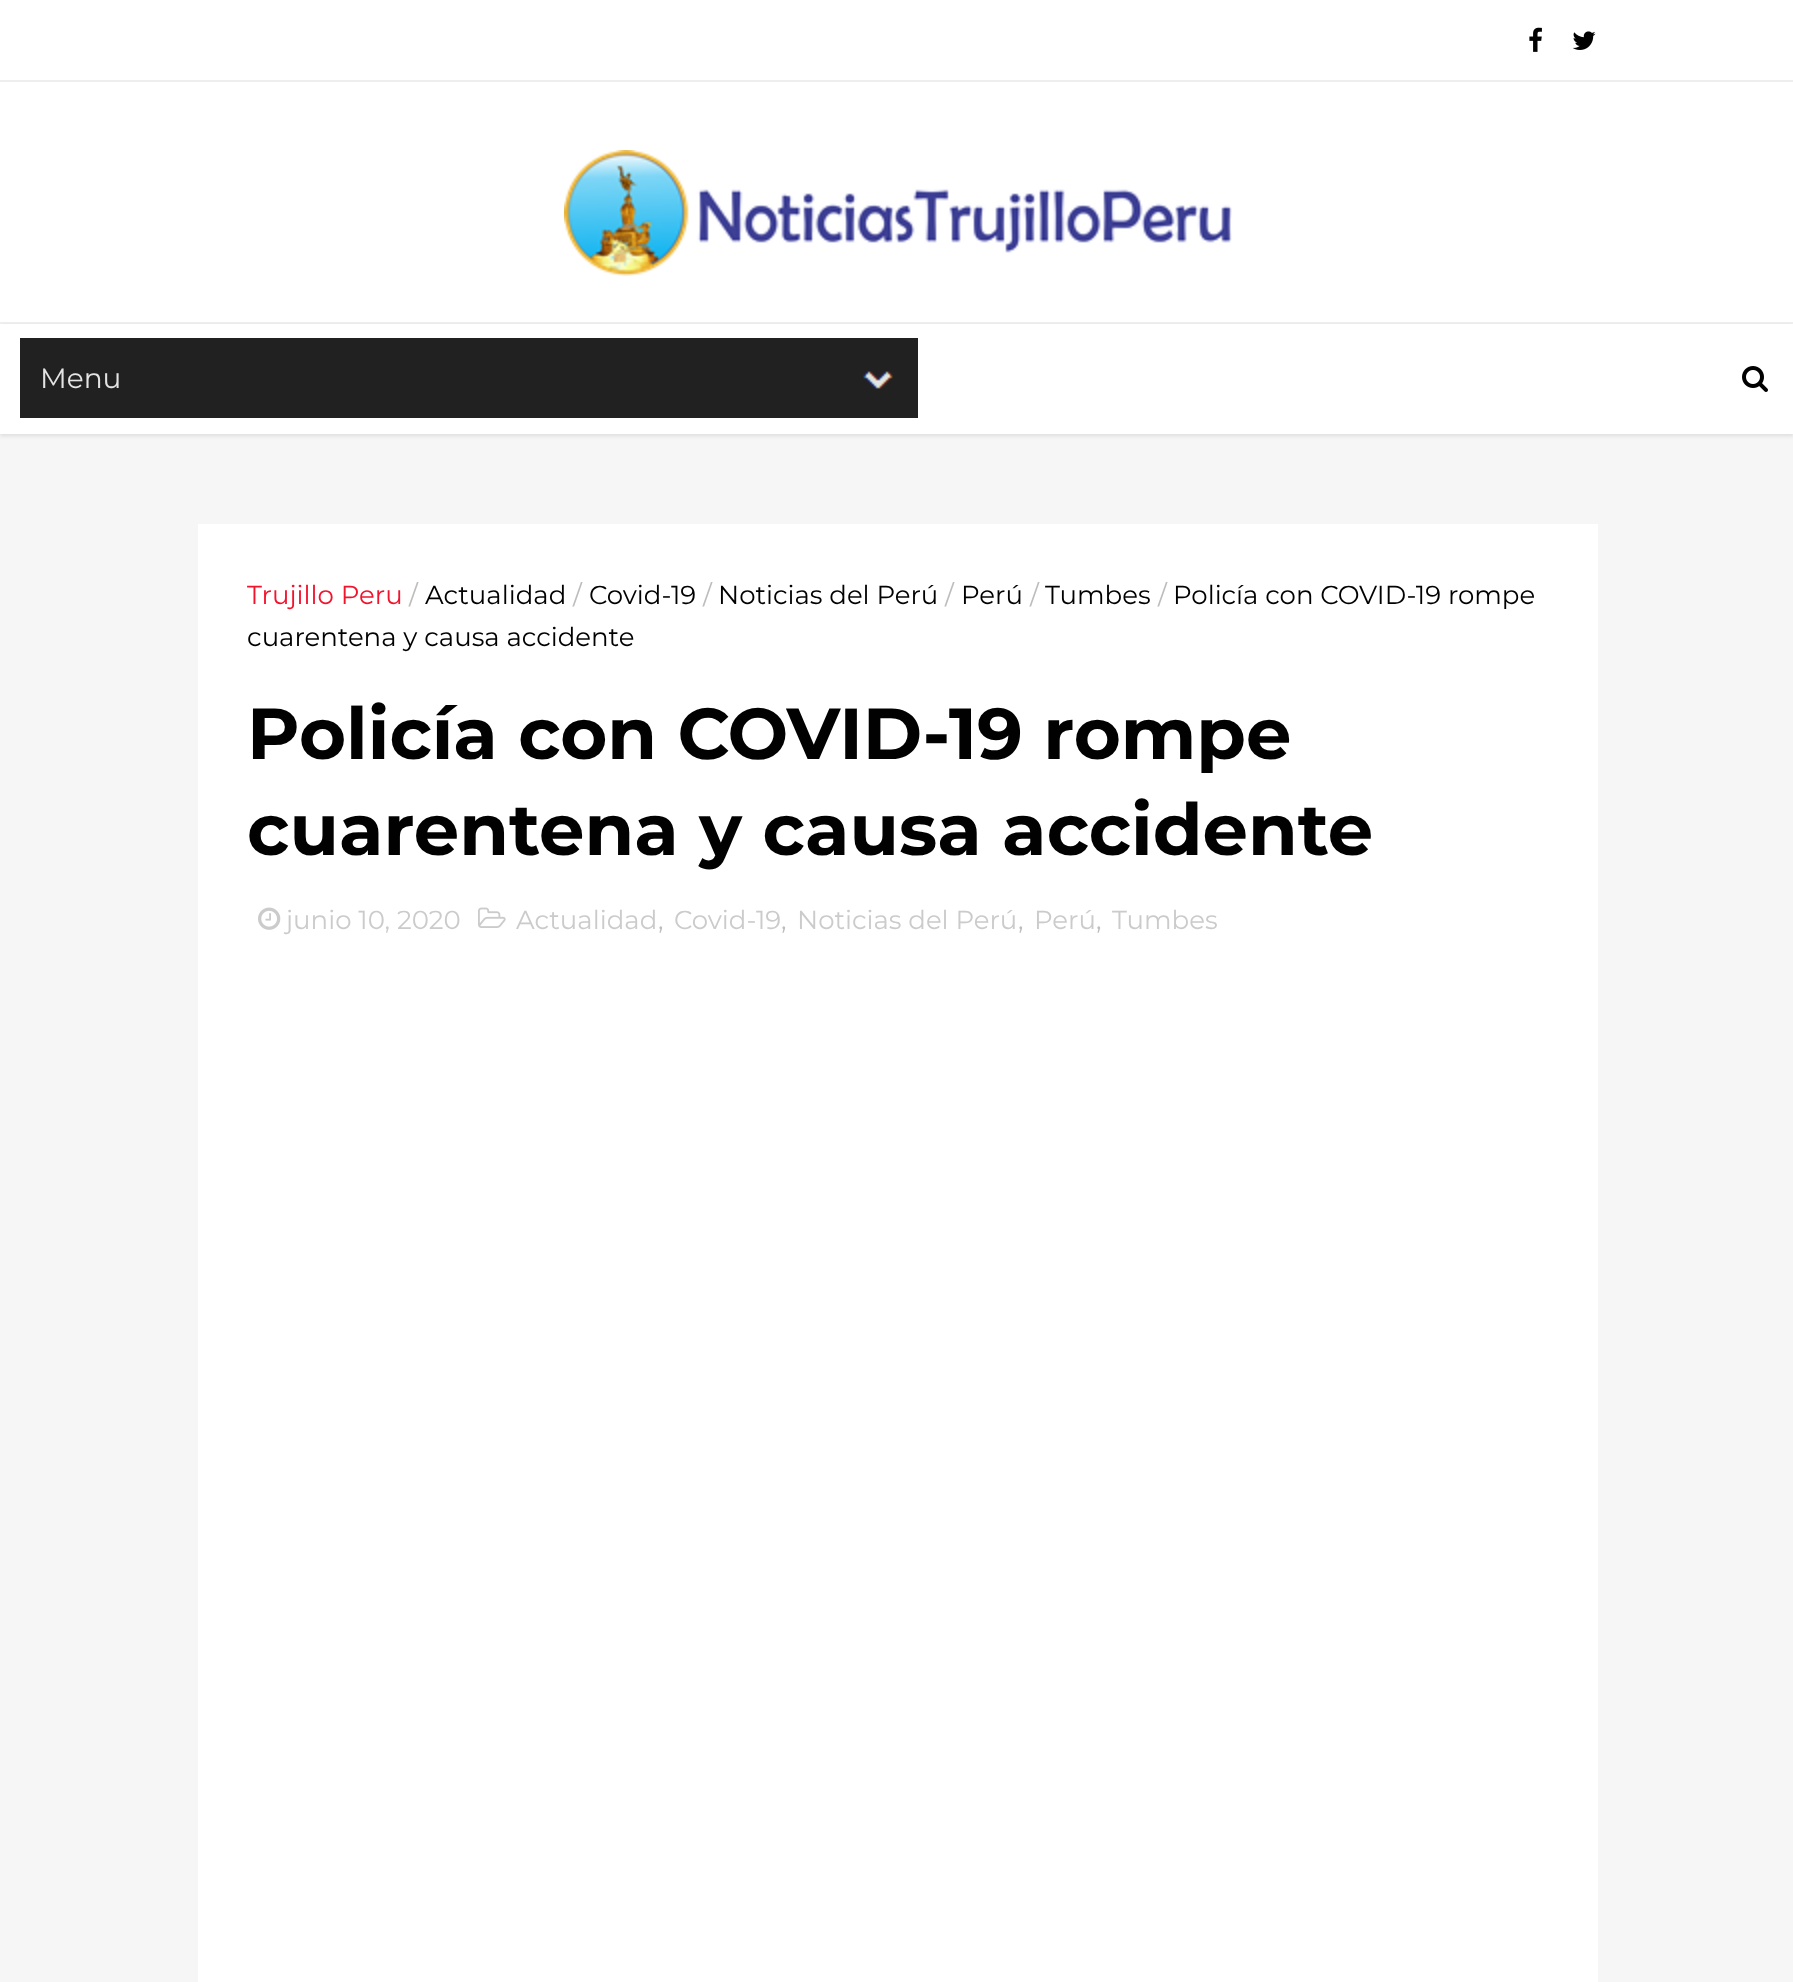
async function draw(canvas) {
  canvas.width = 1793
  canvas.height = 1982
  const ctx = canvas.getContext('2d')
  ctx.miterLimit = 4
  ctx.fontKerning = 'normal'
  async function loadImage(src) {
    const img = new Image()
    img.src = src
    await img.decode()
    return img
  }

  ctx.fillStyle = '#f6f6f6'
  ctx.fillRect(0, 0, 1793, 1982)
  ctx.fillStyle = '#fff'
  ctx.fillRect(0, 0, 1793, 80)
  ctx.fillStyle = '#eee'
  ctx.fillRect(0, 80, 1793, 2)
  ctx.drawImage(await loadImage('image0.png'), 1529, 27, 13, 25)
  ctx.drawImage(await loadImage('image1.png'), 1572, 31, 24, 19)
  ctx.fillStyle = '#0000001a'
  ctx.filter = 'blur(2px)'
  ctx.beginPath()
  ctx.rect(0, 324, 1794, 112)
  ctx.fill()
  ctx.filter = 'none'
  ctx.fillStyle = '#fff'
  ctx.fillRect(0, 82, 1793, 240)
  ctx.drawImage(await loadImage('image2.png'), 564, 150, 668, 126)
  ctx.fillRect(0, 324, 1793, 110)
  ctx.fillStyle = '#eee'
  ctx.fillRect(0, 322, 1793, 1)
  ctx.fillStyle = '#212121'
  ctx.fillRect(20, 338, 898, 80)
  ctx.drawImage(await loadImage('image3.png'), 863, 371, 30, 18)
  ctx.font = '28px Montserrat'
  ctx.fillStyle = '#e4e4e4'
  ctx.fillText('Menu', 40, 388)
  ctx.drawImage(await loadImage('image4.png'), 1742, 366, 26, 26)
  ctx.fillStyle = '#fff'
  ctx.fillRect(198, 524, 1400, 1458)
  ctx.font = '26px Montserrat'
  ctx.fillStyle = '#f2132d'
  ctx.fillText('Trujillo Peru', 247, 604)
  ctx.fillStyle = '#bdbdbd'
  ctx.fillText('/', 409, 604)
  ctx.fillStyle = '#010101'
  ctx.fillText('Actualidad', 425, 604)
  ctx.fillStyle = '#bdbdbd'
  ctx.fillText('/', 573, 604)
  ctx.fillStyle = '#010101'
  ctx.fillText('Covid-19', 589, 604)
  ctx.fillStyle = '#bdbdbd'
  ctx.fillText('/', 703, 604)
  ctx.fillStyle = '#010101'
  ctx.fillText('Noticias del Perú', 718, 604)
  ctx.fillStyle = '#bdbdbd'
  ctx.fillText('/', 945, 604)
  ctx.fillStyle = '#010101'
  ctx.fillText('Perú', 961, 604)
  ctx.fillStyle = '#bdbdbd'
  ctx.fillText('/', 1030, 604)
  ctx.fillStyle = '#010101'
  ctx.fillText('Tumbes', 1045, 604)
  ctx.fillStyle = '#bdbdbd'
  ctx.fillText('/', 1158, 604)
  ctx.fillStyle = '#010101'
  ctx.fillText('Policía con COVID-19 rompe', 1173, 604)
  ctx.fillText('cuarentena y causa accidente', 247, 646)
  ctx.font = '100 72px Montserrat'
  ctx.fillText('Policía con COVID-19 rompe', 247, 759)
  ctx.fillText('cuarentena y causa accidente', 247, 855)
  ctx.drawImage(await loadImage('image5.png'), 258, 907, 23, 23)
  ctx.font = '26px Montserrat'
  ctx.fillStyle = '#cbcbcb'
  ctx.fillText('junio 10, 2020', 286, 929)
  ctx.drawImage(await loadImage('image6.png'), 478, 907, 28, 21)
  ctx.fillText('Actualidad', 516, 929)
  ctx.fillStyle = '#bdbdbd'
  ctx.fillText(',', 658, 929)
  ctx.fillStyle = '#cbcbcb'
  ctx.fillText('Covid-19', 674, 929)
  ctx.fillStyle = '#bdbdbd'
  ctx.fillText(',', 781, 929)
  ctx.fillStyle = '#cbcbcb'
  ctx.fillText('Noticias del Perú', 797, 929)
  ctx.fillStyle = '#bdbdbd'
  ctx.fillText(',', 1018, 929)
  ctx.fillStyle = '#cbcbcb'
  ctx.fillText('Perú', 1034, 929)
  ctx.fillStyle = '#bdbdbd'
  ctx.fillText(',', 1096, 929)
  ctx.fillStyle = '#cbcbcb'
  ctx.fillText('Tumbes', 1112, 929)
}

draw(document.querySelector('canvas'))
